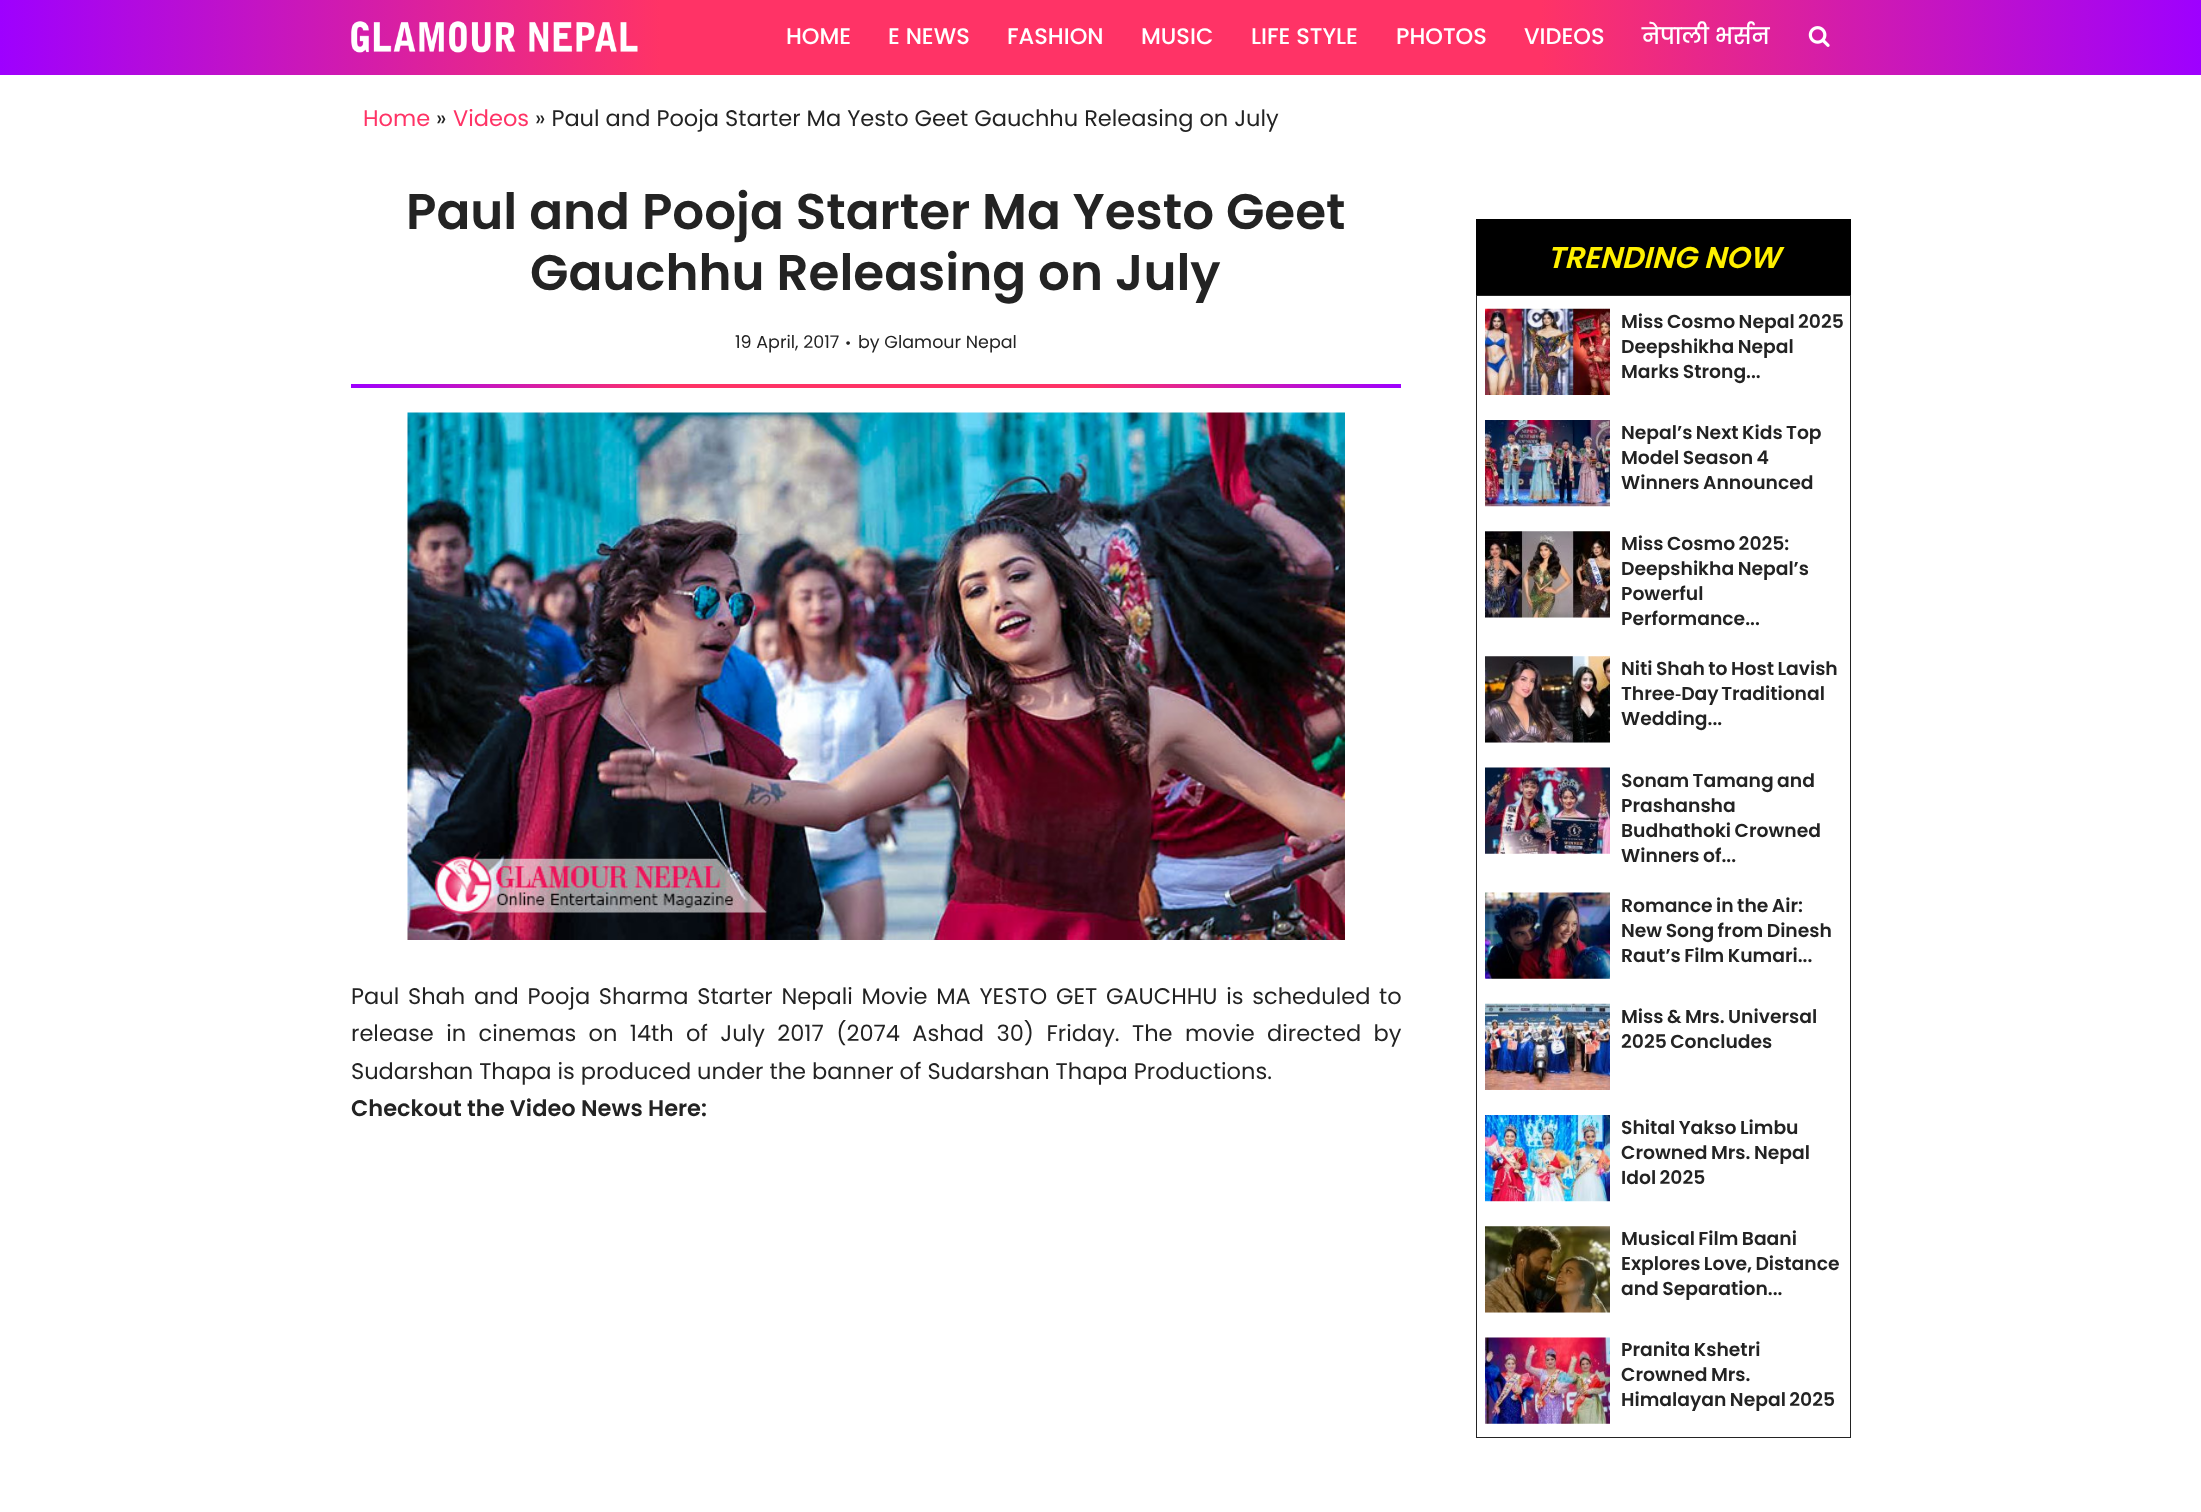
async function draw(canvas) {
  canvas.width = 2201
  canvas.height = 1512
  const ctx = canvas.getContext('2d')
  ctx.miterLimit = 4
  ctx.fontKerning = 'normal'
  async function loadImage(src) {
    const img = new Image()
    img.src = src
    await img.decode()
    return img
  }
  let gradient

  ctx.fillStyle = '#fff'
  ctx.fillRect(0, 0, 2201, 1512)
  gradient = ctx.createLinearGradient(0, 38, 2201, 37)
  gradient.addColorStop(0, '#9e00ff')
  gradient.addColorStop(0.3, '#f36')
  gradient.addColorStop(0.7, '#f36')
  gradient.addColorStop(1, '#9e00ff')
  ctx.fillStyle = gradient
  ctx.fillRect(0, 0, 2201, 75)
  ctx.drawImage(await loadImage('image0.png'), 351, 21, 287, 32)
  ctx.font = '500 22.5px Poppins'
  ctx.fillStyle = '#fff'
  ctx.fillText('HOME', 786, 44)
  ctx.fillText('E NEWS', 888, 44)
  ctx.fillText('FASHION', 1007, 44)
  ctx.fillText('MUSIC', 1141, 44)
  ctx.fillText('LIFE STYLE', 1251, 44)
  ctx.fillText('PHOTOS', 1396, 44)
  ctx.fillText('VIDEOS', 1524, 44)
  ctx.fillText('नेपाली भर्सन', 1642, 44)
  ctx.drawImage(await loadImage('image1.png'), 1808, 26, 22, 21)
  ctx.font = '22.5px Poppins'
  ctx.fillStyle = '#f36'
  ctx.fillText('Home', 363, 126)
  ctx.fillStyle = '#232323'
  ctx.fillText('»', 436, 126)
  ctx.fillStyle = '#f36'
  ctx.fillText('Videos', 453, 126)
  ctx.fillStyle = '#232323'
  ctx.fillText('» Paul and Pooja Starter Ma Yesto Geet Gauchhu Releasing on July', 535, 126)
  ctx.font = '600 50px Poppins'
  ctx.fillText('Paul and Pooja Starter Ma Yesto Geet', 406, 229)
  ctx.fillText('Gauchhu Releasing on July', 530, 290)
  ctx.font = '17.5px Poppins'
  ctx.fillText('19 April, 2017', 735, 348)
  ctx.font = '15px Poppins'
  ctx.fillText('•', 845, 348)
  ctx.font = '17.5px Poppins'
  ctx.fillText('by Glamour Nepal', 858, 348)
  gradient = ctx.createLinearGradient(351, 386, 1401, 386)
  gradient.addColorStop(0, '#9e00ff')
  gradient.addColorStop(0.3, '#f36')
  gradient.addColorStop(0.7, '#f36')
  gradient.addColorStop(1, '#9e00ff')
  ctx.fillStyle = gradient
  ctx.fillRect(351, 384, 1050, 4)
  ctx.drawImage(await loadImage('image2.png'), 407, 412, 938, 528)
  ctx.wordSpacing = '2.75px'
  ctx.font = '22.5px Poppins'
  ctx.fillStyle = '#232323'
  ctx.fillText('Paul Shah and Pooja Sharma Starter Nepali Movie MA YESTO GET GAUCHHU is scheduled to', 351, 1004)
  ctx.wordSpacing = '6.4px'
  ctx.fillText('release in cinemas on 14th of July 2017 (2074 Ashad 30) Friday. The movie directed by', 351, 1041)
  ctx.wordSpacing = '0px'
  ctx.fillText('Sudarshan Thapa is produced under the banner of Sudarshan Thapa Productions.', 351, 1079)
  ctx.font = '600 22.5px Poppins'
  ctx.fillText('Checkout the Video News Here:', 351, 1116)
  ctx.fillStyle = '#000'
  ctx.fillRect(1476, 219, 375, 76)
  ctx.font = 'italic 600 30px Poppins'
  ctx.fillStyle = '#fff000'
  ctx.fillText('TRENDING NOW', 1547, 268)
  ctx.strokeStyle = '#232323'
  ctx.strokeRect(1476.5, 295.5, 374, 1142)
  ctx.drawImage(await loadImage('image3.png'), 1485, 308, 125, 87)
  ctx.wordSpacing = '-1px'
  ctx.font = '600 18.75px Poppins'
  ctx.fillStyle = '#232323'
  ctx.fillText('Miss Cosmo Nepal 2025', 1621, 328)
  ctx.fillText('Deepshikha Nepal', 1621, 353)
  ctx.fillText('Marks Strong...', 1621, 378)
  ctx.drawImage(await loadImage('image4.png'), 1485, 420, 125, 87)
  ctx.fillText('Nepal’s Next Kids Top', 1621, 439)
  ctx.fillText('Model Season 4', 1621, 464)
  ctx.fillText('Winners Announced', 1621, 489)
  ctx.drawImage(await loadImage('image5.png'), 1485, 531, 125, 87)
  ctx.fillText('Miss Cosmo 2025:', 1621, 550)
  ctx.fillText('Deepshikha Nepal’s', 1621, 575)
  ctx.wordSpacing = '0px'
  ctx.fillText('Powerful', 1621, 600)
  ctx.fillText('Performance...', 1621, 625)
  ctx.drawImage(await loadImage('image6.png'), 1485, 656, 125, 87)
  ctx.wordSpacing = '-1px'
  ctx.fillText('Niti Shah to Host Lavish', 1621, 675)
  ctx.wordSpacing = '-2px'
  ctx.fillText('Three‑Day Traditional', 1621, 700)
  ctx.wordSpacing = '0px'
  ctx.fillText('Wedding...', 1621, 725)
  ctx.drawImage(await loadImage('image7.png'), 1485, 767, 125, 87)
  ctx.wordSpacing = '-1px'
  ctx.fillText('Sonam Tamang and', 1621, 787)
  ctx.wordSpacing = '0px'
  ctx.fillText('Prashansha', 1621, 812)
  ctx.wordSpacing = '-1px'
  ctx.fillText('Budhathoki Crowned', 1621, 837)
  ctx.fillText('Winners of...', 1621, 862)
  ctx.drawImage(await loadImage('image8.png'), 1485, 892, 125, 87)
  ctx.fillText('Romance in the Air:', 1621, 912)
  ctx.fillText('New Song from Dinesh', 1621, 937)
  ctx.fillText('Raut’s Film Kumari...', 1621, 962)
  ctx.drawImage(await loadImage('image9.png'), 1485, 1003, 125, 87)
  ctx.fillText('Miss & Mrs. Universal', 1621, 1023)
  ctx.fillText('2025 Concludes', 1621, 1048)
  ctx.drawImage(await loadImage('image10.png'), 1485, 1115, 125, 87)
  ctx.fillText('Shital Yakso Limbu', 1621, 1134)
  ctx.fillText('Crowned Mrs. Nepal', 1621, 1159)
  ctx.fillText('Idol 2025', 1621, 1184)
  ctx.drawImage(await loadImage('image11.png'), 1485, 1226, 125, 87)
  ctx.fillText('Musical Film Baani', 1621, 1245)
  ctx.fillText('Explores Love, Distance', 1621, 1270)
  ctx.fillText('and Separation...', 1621, 1295)
  ctx.drawImage(await loadImage('image12.png'), 1485, 1337, 125, 87)
  ctx.fillText('Pranita Kshetri', 1621, 1356)
  ctx.fillText('Crowned Mrs.', 1621, 1381)
  ctx.fillText('Himalayan Nepal 2025', 1621, 1406)
}

draw(document.querySelector('canvas'))
